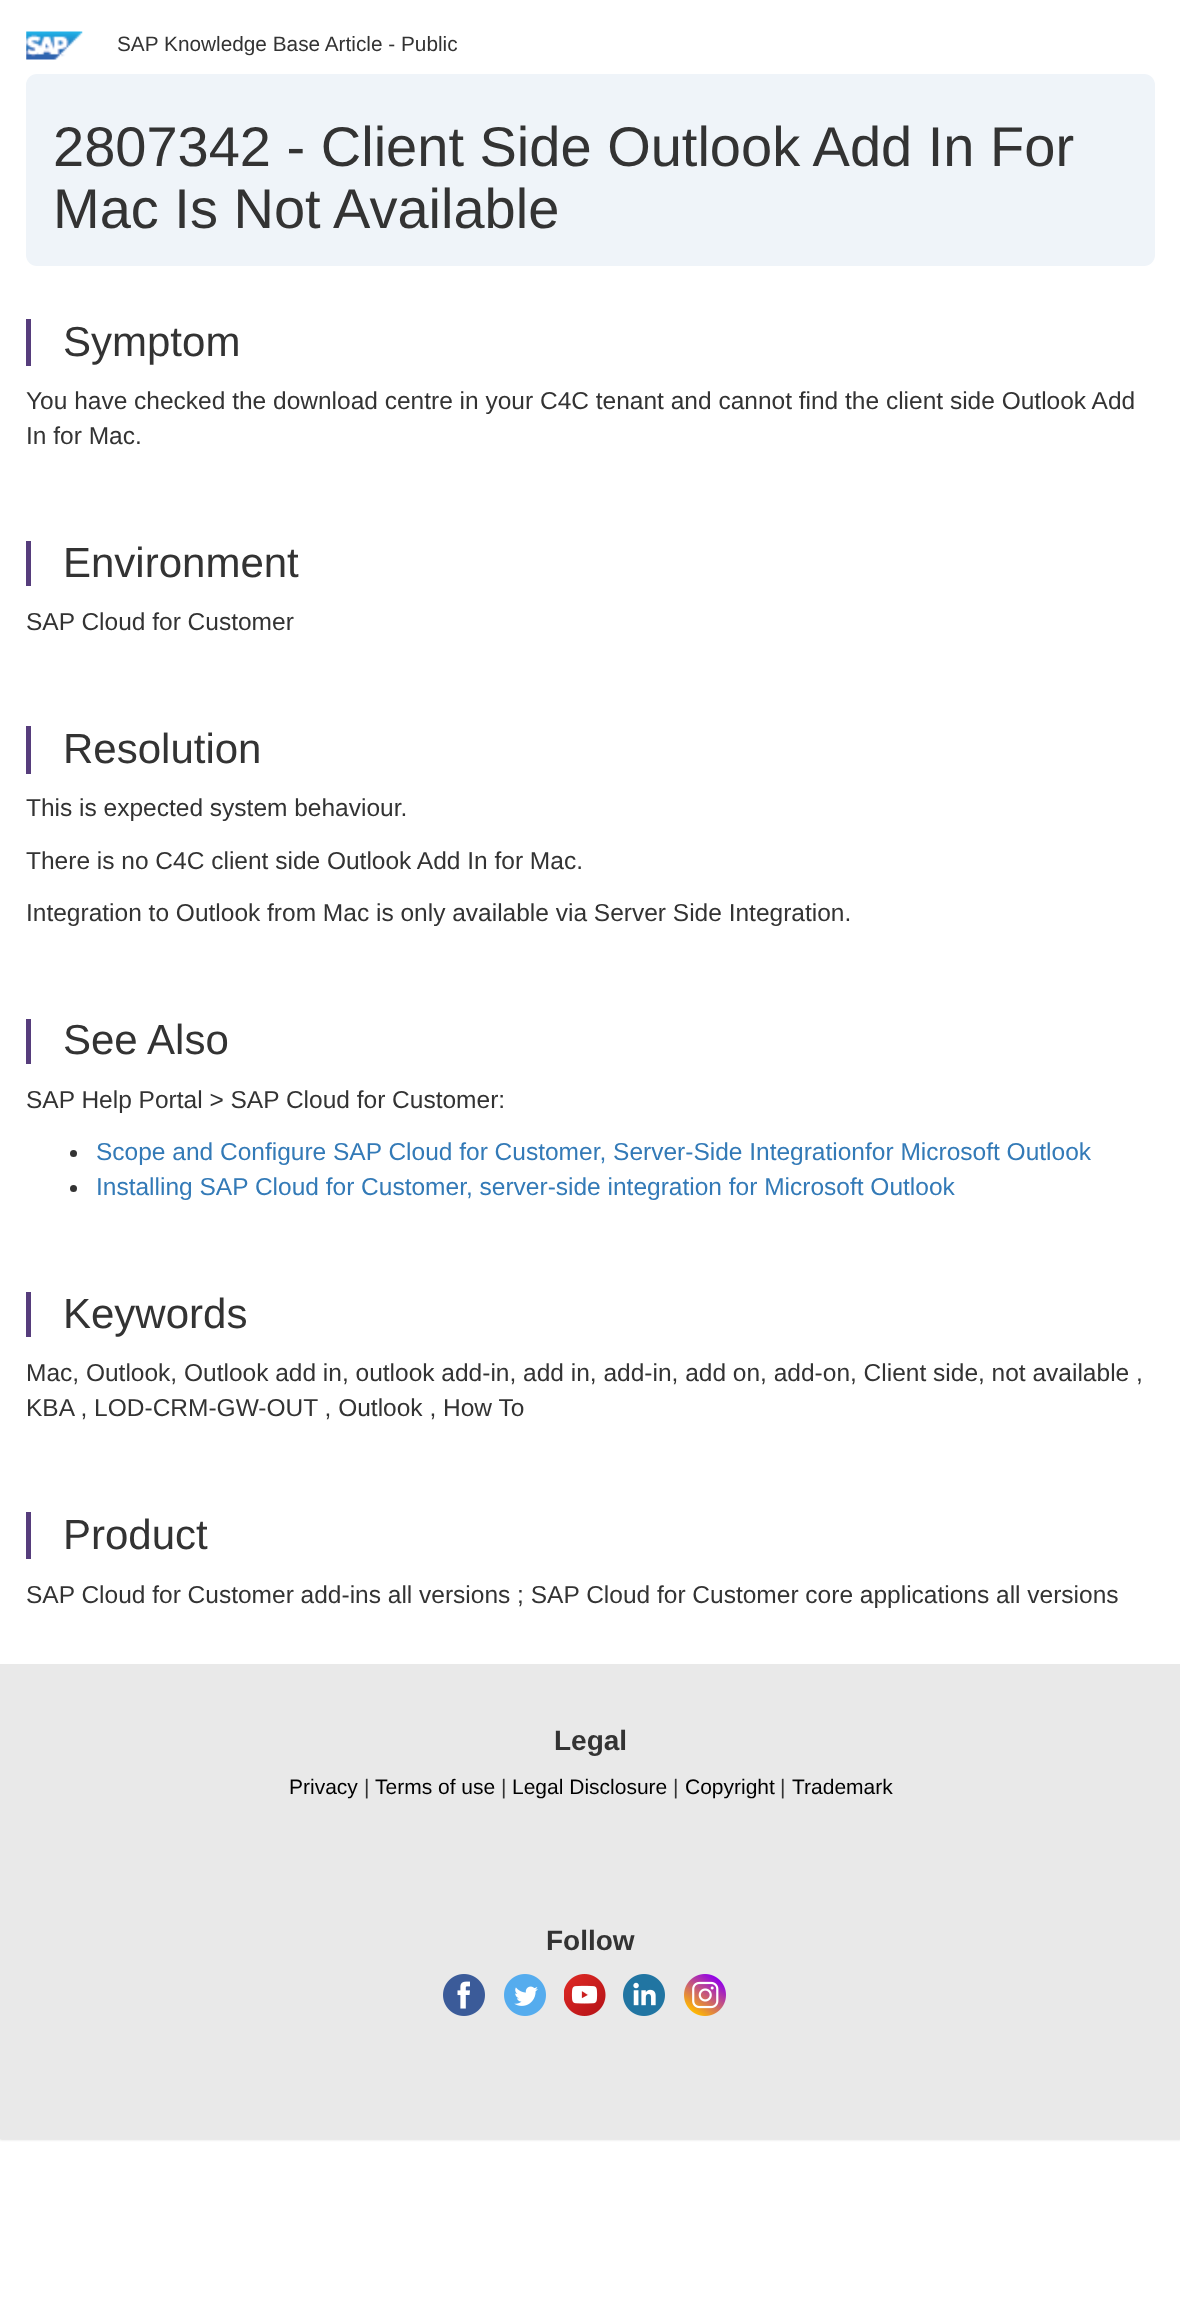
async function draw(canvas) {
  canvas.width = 1180
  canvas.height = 2297
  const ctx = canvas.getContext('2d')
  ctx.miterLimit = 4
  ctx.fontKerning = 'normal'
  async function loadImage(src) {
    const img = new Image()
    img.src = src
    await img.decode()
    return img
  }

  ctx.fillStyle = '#fff'
  ctx.fillRect(0, 0, 1180, 2297)
  ctx.drawImage(await loadImage('image0.png'), 26, 31, 57, 29)
  ctx.font = '20.8px Liberation Sans'
  ctx.fillStyle = '#333'
  ctx.fillText('SAP Knowledge Base Article - Public', 117, 51)
  ctx.fillStyle = '#eff4f9'
  ctx.beginPath()
  ctx.roundRect(26, 74, 1129, 192, 11)
  ctx.fill()
  ctx.font = '56px Liberation Sans'
  ctx.fillStyle = '#333'
  ctx.fillText('2807342 - Client Side Outlook Add In For', 53, 166)
  ctx.fillText('Mac Is Not Available', 53, 228)
  ctx.fillStyle = '#563d7c'
  ctx.fillRect(26, 319, 5, 47)
  ctx.font = '42px Liberation Sans'
  ctx.fillStyle = '#333'
  ctx.fillText('Symptom', 63, 356)
  ctx.font = '24.5px Liberation Sans'
  ctx.fillText('You have checked the download centre in your C4C tenant and cannot find the client side Outlook Add', 26, 409)
  ctx.fillText('In for Mac.', 26, 444)
  ctx.fillStyle = '#563d7c'
  ctx.fillRect(26, 541, 5, 45)
  ctx.font = '42px Liberation Sans'
  ctx.fillStyle = '#333'
  ctx.fillText('Environment', 63, 577)
  ctx.font = '24.5px Liberation Sans'
  ctx.fillText('SAP Cloud for Customer', 26, 630)
  ctx.fillStyle = '#563d7c'
  ctx.fillRect(26, 726, 5, 48)
  ctx.font = '42px Liberation Sans'
  ctx.fillStyle = '#333'
  ctx.fillText('Resolution', 63, 763)
  ctx.font = '24.5px Liberation Sans'
  ctx.fillText('This is expected system behaviour.', 26, 816)
  ctx.fillText('There is no C4C client side Outlook Add In for Mac.', 26, 869)
  ctx.fillText('Integration to Outlook from Mac is only available via Server Side Integration.', 26, 921)
  ctx.fillStyle = '#563d7c'
  ctx.fillRect(26, 1019, 5, 45)
  ctx.font = '42px Liberation Sans'
  ctx.fillStyle = '#333'
  ctx.fillText('See Also', 63, 1054)
  ctx.font = '24.5px Liberation Sans'
  ctx.fillText('SAP Help Portal > SAP Cloud for Customer:', 26, 1108)
  ctx.beginPath()
  ctx.arc(73.5, 1153.5, 3.5, 0, 2 * Math.PI)
  ctx.fill()
  ctx.fillStyle = '#337ab7'
  ctx.fillText('Scope and Configure SAP Cloud for Customer, Server-Side Integrationfor Microsoft Outlook', 96, 1160)
  ctx.fillStyle = '#333'
  ctx.beginPath()
  ctx.arc(73.5, 1188.5, 3.5, 0, 2 * Math.PI)
  ctx.fill()
  ctx.fillStyle = '#337ab7'
  ctx.fillText('Installing SAP Cloud for Customer, server-side integration for Microsoft Outlook', 96, 1195)
  ctx.fillStyle = '#563d7c'
  ctx.fillRect(26, 1292, 5, 45)
  ctx.font = '42px Liberation Sans'
  ctx.fillStyle = '#333'
  ctx.fillText('Keywords', 63, 1328)
  ctx.font = '24.5px Liberation Sans'
  ctx.fillText('Mac, Outlook, Outlook add in, outlook add-in, add in, add-in, add on, add-on, Client side, not available ,', 26, 1381)
  ctx.fillText('KBA , LOD-CRM-GW-OUT , Outlook , How To', 26, 1416)
  ctx.fillStyle = '#563d7c'
  ctx.fillRect(26, 1512, 5, 47)
  ctx.font = '42px Liberation Sans'
  ctx.fillStyle = '#333'
  ctx.fillText('Product', 63, 1549)
  ctx.font = '24.5px Liberation Sans'
  ctx.fillText('SAP Cloud for Customer add-ins all versions ; SAP Cloud for Customer core applications all versions', 26, 1603)
  ctx.fillStyle = '#0000001f'
  ctx.filter = 'blur(1px)'
  ctx.beginPath()
  ctx.rect(0, 1666, 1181, 474)
  ctx.fill()
  ctx.filter = 'none'
  ctx.fillStyle = '#e9e9e9'
  ctx.fillRect(0, 1664, 1180, 475)
  ctx.font = 'bold 28px Liberation Sans'
  ctx.fillStyle = '#333'
  ctx.fillText('Legal', 554, 1750)
  ctx.font = '21px Liberation Sans'
  ctx.fillStyle = '#000'
  ctx.fillText('Privacy', 289, 1794)
  ctx.fillStyle = '#333'
  ctx.fillText('|', 364, 1794)
  ctx.fillStyle = '#000'
  ctx.fillText('Terms of use', 375, 1794)
  ctx.fillStyle = '#333'
  ctx.fillText('|', 501, 1794)
  ctx.fillStyle = '#000'
  ctx.fillText('Legal Disclosure', 512, 1794)
  ctx.fillStyle = '#333'
  ctx.fillText('|', 673, 1794)
  ctx.fillStyle = '#000'
  ctx.fillText('Copyright', 685, 1794)
  ctx.fillStyle = '#333'
  ctx.fillText('|', 780, 1794)
  ctx.fillStyle = '#000'
  ctx.fillText('Trademark', 792, 1794)
  ctx.font = 'bold 28px Liberation Sans'
  ctx.fillStyle = '#333'
  ctx.fillText('Follow', 546, 1950)
  ctx.drawImage(await loadImage('image1.png'), 443, 1974, 42, 42)
  ctx.drawImage(await loadImage('image2.png'), 504, 1974, 42, 42)
  ctx.drawImage(await loadImage('image3.png'), 564, 1974, 42, 42)
  ctx.drawImage(await loadImage('image4.png'), 623, 1974, 42, 42)
  ctx.drawImage(await loadImage('image5.png'), 684, 1974, 42, 42)
}

draw(document.querySelector('canvas'))
